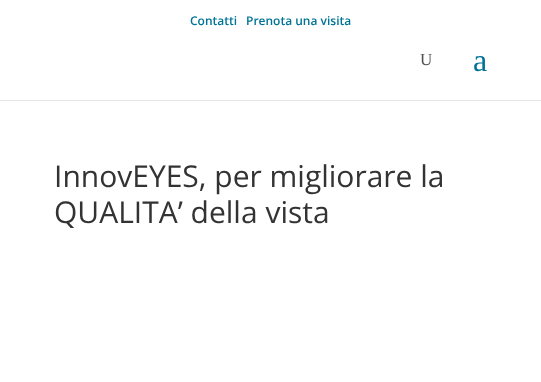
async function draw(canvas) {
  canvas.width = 541
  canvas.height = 382
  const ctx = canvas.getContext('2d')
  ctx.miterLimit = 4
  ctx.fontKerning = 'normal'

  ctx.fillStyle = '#fff'
  ctx.fillRect(0, 0, 541, 382)
  ctx.font = '600 12px Open Sans'
  ctx.fillStyle = '#007398'
  ctx.fillText('Contatti', 190, 25)
  ctx.fillText('Prenota una visita', 246, 25)
  ctx.fillStyle = '#e6e6e6'
  ctx.fillRect(0, 100, 541, 1)
  ctx.font = '17px Liberation Serif'
  ctx.fillStyle = '#515151'
  ctx.fillText('U', 420, 65)
  ctx.font = '32px Liberation Serif'
  ctx.fillStyle = '#007398'
  ctx.fillText('a', 473, 71)
  ctx.font = '30px Open Sans'
  ctx.fillStyle = '#333'
  ctx.fillText('InnovEYES, per migliorare la', 54, 187)
  ctx.fillText('QUALITA’ della vista', 54, 223)
}

draw(document.querySelector('canvas'))
